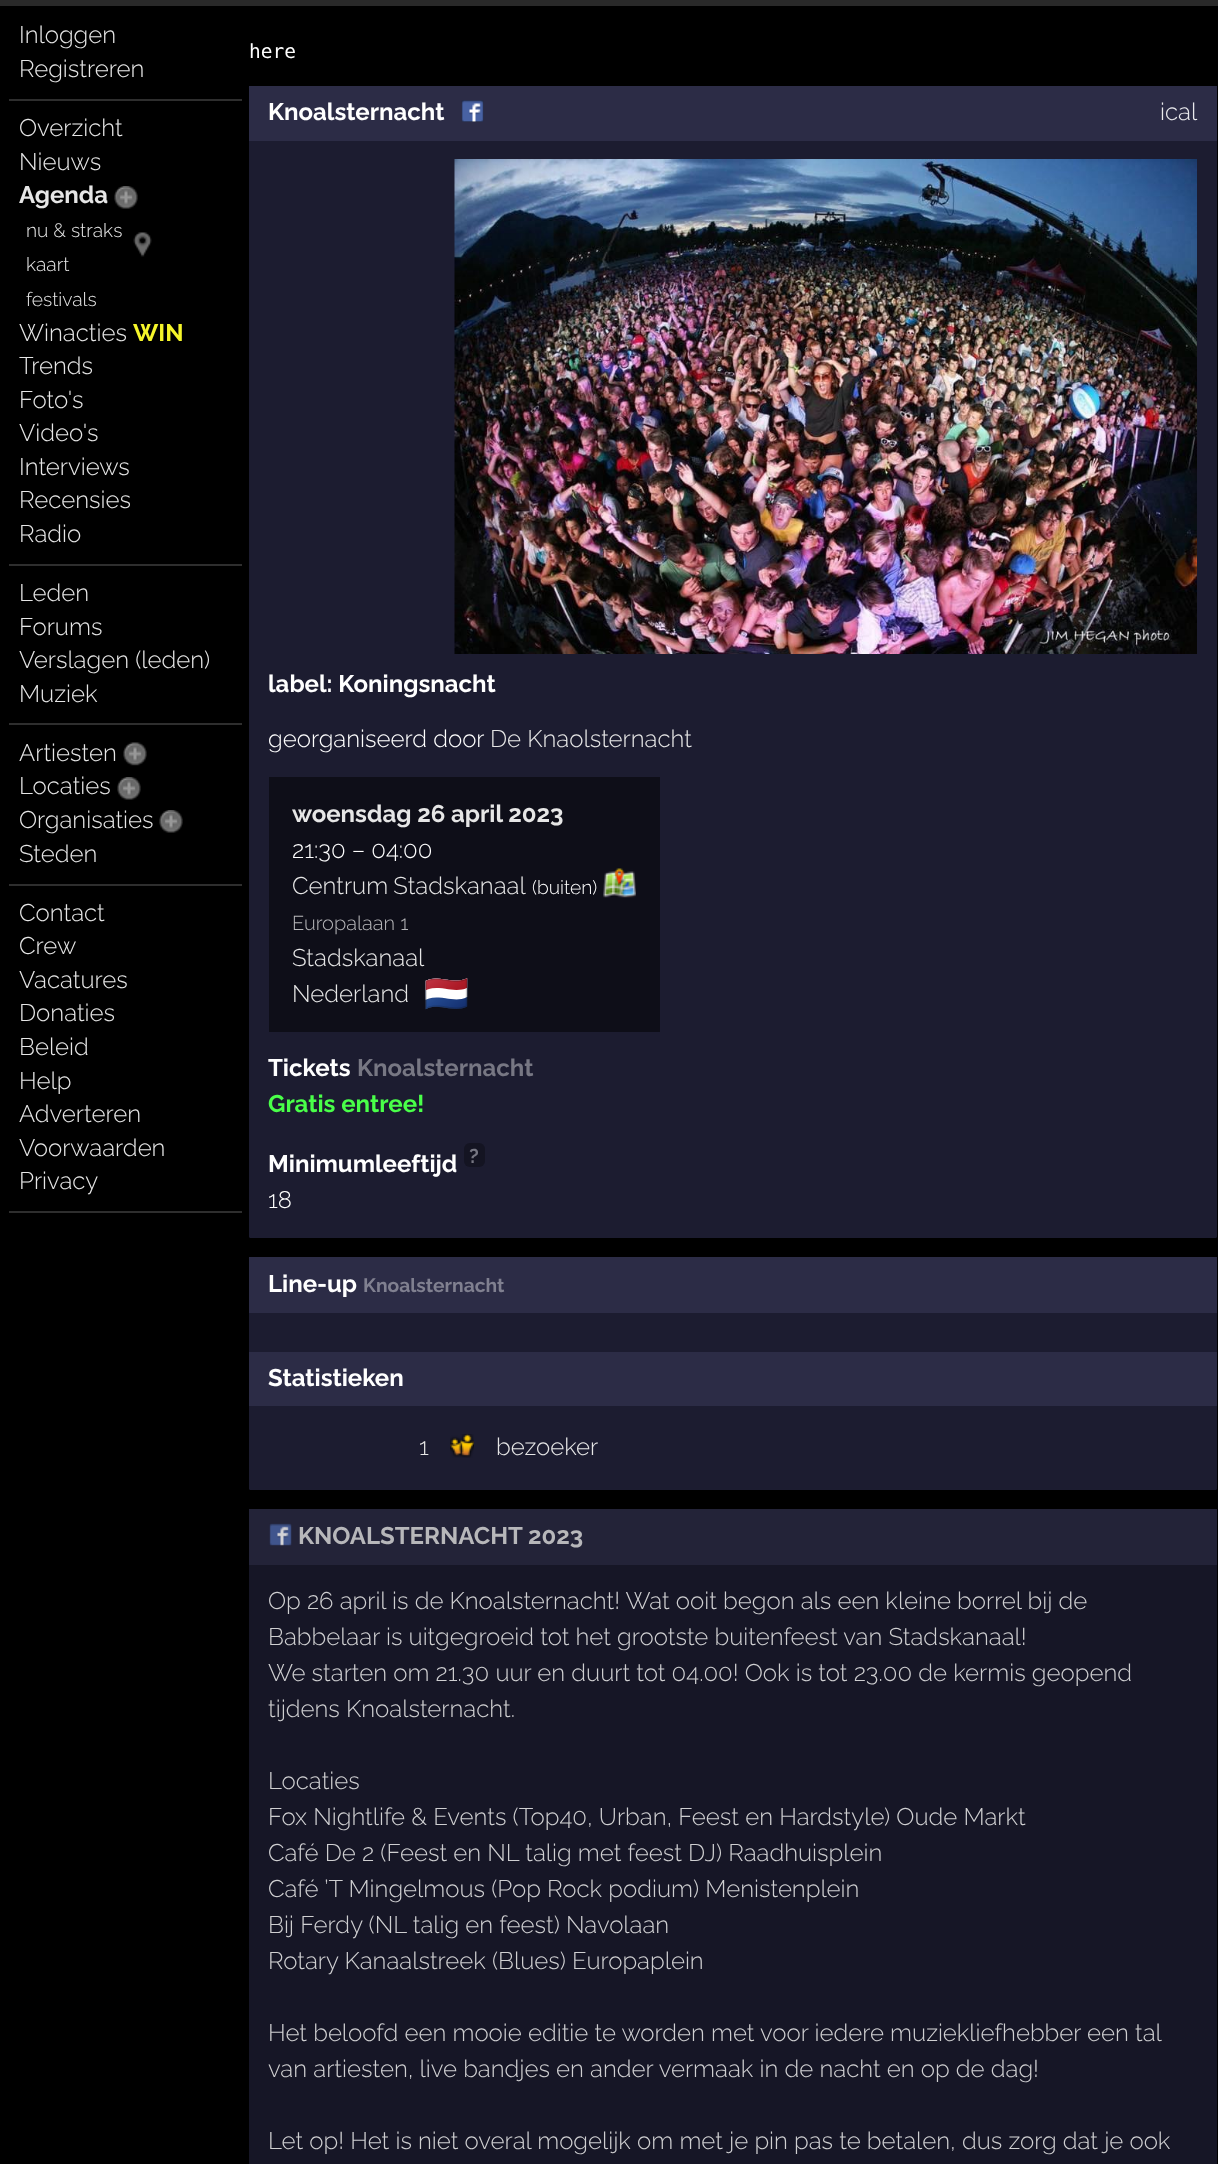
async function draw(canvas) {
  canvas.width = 1218
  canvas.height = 2164
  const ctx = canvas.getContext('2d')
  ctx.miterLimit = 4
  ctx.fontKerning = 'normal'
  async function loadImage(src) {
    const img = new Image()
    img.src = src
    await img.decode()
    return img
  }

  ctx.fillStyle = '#000'
  ctx.fillRect(0, 0, 1218, 2164)
  ctx.fillStyle = '#292929'
  ctx.fillRect(0, 0, 1218, 6)
  ctx.font = '300 24px Raleway'
  ctx.fillStyle = '#e6e6e6'
  ctx.fillText('Inloggen', 19, 43)
  ctx.fillText('Registreren', 19, 77)
  ctx.fillStyle = '#2e2e2e'
  ctx.fillRect(9, 99, 233, 2)
  ctx.fillStyle = '#e6e6e6'
  ctx.fillText('Overzicht', 19, 136)
  ctx.fillText('Nieuws', 19, 170)
  ctx.font = 'bold 24px Raleway'
  ctx.fillText('Agenda', 19, 203)
  ctx.drawImage(await loadImage('image0.png'), 114, 186, 24, 23)
  ctx.font = '300 19.25px Raleway'
  ctx.fillText('nu & straks', 26, 237)
  ctx.drawImage(await loadImage('image1.png'), 133, 232, 19, 25)
  ctx.fillText('kaart', 26, 271)
  ctx.fillText('festivals', 26, 306)
  ctx.font = '300 24px Raleway'
  ctx.fillText('Winacties', 19, 341)
  ctx.font = 'bold 24px Raleway'
  ctx.fillStyle = '#f6f62a'
  ctx.fillText('WIN', 133, 341)
  ctx.font = '300 24px Raleway'
  ctx.fillStyle = '#e6e6e6'
  ctx.fillText('Trends', 19, 374)
  ctx.fillText('Foto\'s', 19, 408)
  ctx.fillText('Video\'s', 19, 441)
  ctx.fillText('Interviews', 19, 475)
  ctx.fillText('Recensies', 19, 508)
  ctx.fillText('Radio', 19, 542)
  ctx.fillStyle = '#2e2e2e'
  ctx.fillRect(9, 564, 233, 2)
  ctx.fillStyle = '#e6e6e6'
  ctx.fillText('Leden', 19, 601)
  ctx.fillText('Forums', 19, 635)
  ctx.fillText('Verslagen (leden)', 19, 668)
  ctx.fillText('Muziek', 19, 702)
  ctx.fillStyle = '#2e2e2e'
  ctx.fillRect(9, 723, 233, 2)
  ctx.fillStyle = '#e6e6e6'
  ctx.fillText('Artiesten', 19, 761)
  ctx.drawImage(await loadImage('image2.png'), 123, 742, 24, 24)
  ctx.fillText('Locaties', 19, 794)
  ctx.drawImage(await loadImage('image0.png'), 117, 777, 24, 23)
  ctx.fillText('Organisaties', 19, 828)
  ctx.drawImage(await loadImage('image0.png'), 159, 810, 24, 23)
  ctx.fillText('Steden', 19, 862)
  ctx.fillStyle = '#2e2e2e'
  ctx.fillRect(9, 884, 233, 2)
  ctx.fillStyle = '#e6e6e6'
  ctx.fillText('Contact', 19, 921)
  ctx.fillText('Crew', 19, 954)
  ctx.fillText('Vacatures', 19, 988)
  ctx.fillText('Donaties', 19, 1021)
  ctx.fillText('Beleid', 19, 1055)
  ctx.fillText('Help', 19, 1089)
  ctx.fillText('Adverteren', 19, 1122)
  ctx.fillText('Voorwaarden', 19, 1156)
  ctx.fillText('Privacy', 19, 1189)
  ctx.fillStyle = '#2e2e2e'
  ctx.fillRect(9, 1211, 233, 2)
  ctx.font = '19.5px DejaVu Sans Mono'
  ctx.fillStyle = '#fff'
  ctx.fillText('here', 249, 58)
  ctx.fillStyle = '#1c1c30'
  ctx.beginPath()
  ctx.roundRect(249, 86, 968, 1152, 1.5)
  ctx.fill()
  ctx.fillStyle = '#2c2c46'
  ctx.fillRect(249, 86, 968, 55)
  ctx.font = 'bold 24px Raleway'
  ctx.fillStyle = '#fff'
  ctx.fillText('Knoalsternacht', 268, 120)
  ctx.drawImage(await loadImage('image3.png'), 461, 100, 23, 22)
  ctx.font = '300 24px Raleway'
  ctx.fillStyle = '#eaeaed'
  ctx.fillText('ical', 1160, 120)
  ctx.drawImage(await loadImage('image4.png'), 454, 159, 743, 495)
  ctx.font = 'bold 24px Raleway'
  ctx.fillStyle = '#fff'
  ctx.fillText('label: Koningsnacht', 268, 692)
  ctx.font = '300 24px Raleway'
  ctx.fillText('georganiseerd door', 268, 747)
  ctx.fillStyle = '#e6e6e6'
  ctx.fillText('De Knaolsternacht', 490, 747)
  ctx.fillStyle = '#0e0e18'
  ctx.fillRect(269, 777, 391, 255)
  ctx.font = 'bold 24px Raleway'
  ctx.fillStyle = '#e6e6e6'
  ctx.fillText('woensdag 26 april 2023', 292, 822)
  ctx.font = '300 24px Raleway'
  ctx.fillStyle = '#fff'
  ctx.fillText('21:30 – 04:00', 292, 858)
  ctx.wordSpacing = '-1px'
  ctx.fillStyle = '#e6e6e6'
  ctx.fillText('Centrum Stadskanaal', 292, 894)
  ctx.wordSpacing = '0px'
  ctx.font = '300 19.25px Raleway'
  ctx.fillStyle = '#fff'
  ctx.fillText('(buiten)', 532, 894)
  ctx.drawImage(await loadImage('image5.png'), 603, 868, 33, 30)
  ctx.font = '300 20px Raleway'
  ctx.fillStyle = '#b7b7ba'
  ctx.fillText('Europalaan 1', 292, 930)
  ctx.font = '300 24px Raleway'
  ctx.fillStyle = '#e6e6e6'
  ctx.fillText('Stadskanaal', 292, 966)
  ctx.fillText('Nederland', 292, 1002)
  ctx.font = '36px Noto Color Emoji'
  ctx.fillStyle = '#cfcfd1'
  ctx.fillText('🇳🇱', 424, 1006)
  ctx.font = 'bold 24px Raleway'
  ctx.fillStyle = '#fff'
  ctx.fillText('Tickets', 268, 1076)
  ctx.fillStyle = '#777783'
  ctx.fillText('Knoalsternacht', 357, 1076)
  ctx.fillStyle = '#49ff49'
  ctx.fillText('Gratis entree!', 268, 1112)
  ctx.fillStyle = '#fff'
  ctx.fillText('Minimumleeftijd', 268, 1172)
  ctx.fillStyle = '#11111db3'
  ctx.beginPath()
  ctx.roundRect(464, 1143, 21, 24, 6)
  ctx.fill()
  ctx.font = 'bold 20px Raleway'
  ctx.fillStyle = '#777783'
  ctx.fillText('?', 469, 1163)
  ctx.font = '300 24px Raleway'
  ctx.fillStyle = '#fff'
  ctx.fillText('18', 268, 1208)
  ctx.fillStyle = '#1c1c30'
  ctx.beginPath()
  ctx.roundRect(249, 1257, 968, 233, 1.5)
  ctx.fill()
  ctx.fillStyle = '#2c2c46'
  ctx.fillRect(249, 1257, 968, 56)
  ctx.font = 'bold 24px Raleway'
  ctx.fillStyle = '#fff'
  ctx.fillText('Line-up', 268, 1292)
  ctx.font = 'bold 19.25px Raleway'
  ctx.fillStyle = '#808090'
  ctx.fillText('Knoalsternacht', 363, 1292)
  ctx.fillStyle = '#2c2c46'
  ctx.fillRect(249, 1352, 968, 54)
  ctx.font = 'bold 24px Raleway'
  ctx.fillStyle = '#fff'
  ctx.fillText('Statistieken', 268, 1386)
  ctx.font = '300 24px Raleway'
  ctx.fillStyle = '#e6e6e6'
  ctx.fillText('1', 419, 1455)
  ctx.drawImage(await loadImage('image6.png'), 450, 1434, 24, 24)
  ctx.fillText('bezoeker', 496, 1455)
  ctx.fillStyle = '#161626'
  ctx.fillRect(249, 1565, 968, 599)
  ctx.fillStyle = '#232338'
  ctx.fillRect(249, 1509, 968, 56)
  ctx.drawImage(await loadImage('image7.png'), 269, 1523, 23, 23)
  ctx.font = 'bold 24px Raleway'
  ctx.fillStyle = '#b7b7ba'
  ctx.fillText('KNOALSTERNACHT 2023', 298, 1544)
  ctx.font = '300 24px Raleway'
  ctx.fillStyle = '#cfcfd1'
  ctx.fillText('Op 26 april is de Knoalsternacht! Wat ooit begon als een kleine borrel bij de', 268, 1609)
  ctx.fillText('Babbelaar is uitgegroeid tot het grootste buitenfeest van Stadskanaal!', 268, 1645)
  ctx.fillText('We starten om 21.30 uur en duurt tot 04.00! Ook is tot 23.00 de kermis geopend', 268, 1681)
  ctx.fillText('tijdens Knoalsternacht.', 268, 1717)
  ctx.fillText('Locaties', 268, 1789)
  ctx.fillText('Fox Nightlife & Events (Top40, Urban, Feest en Hardstyle) Oude Markt', 268, 1825)
  ctx.fillText('Café De 2 (Feest en NL talig met feest DJ) Raadhuisplein', 268, 1861)
  ctx.fillText('Café ’T Mingelmous (Pop Rock podium) Menistenplein', 268, 1897)
  ctx.fillText('Bij Ferdy (NL talig en feest) Navolaan', 268, 1933)
  ctx.fillText('Rotary Kanaalstreek (Blues) Europaplein', 268, 1969)
  ctx.fillText('Het beloofd een mooie editie te worden met voor iedere muziekliefhebber een tal', 268, 2041)
  ctx.fillText('van artiesten, live bandjes en ander vermaak in de nacht en op de dag!', 268, 2077)
  ctx.fillText('Let op! Het is niet overal mogelijk om met je pin pas te betalen, dus zorg dat je ook', 268, 2149)
}

draw(document.querySelector('canvas'))
